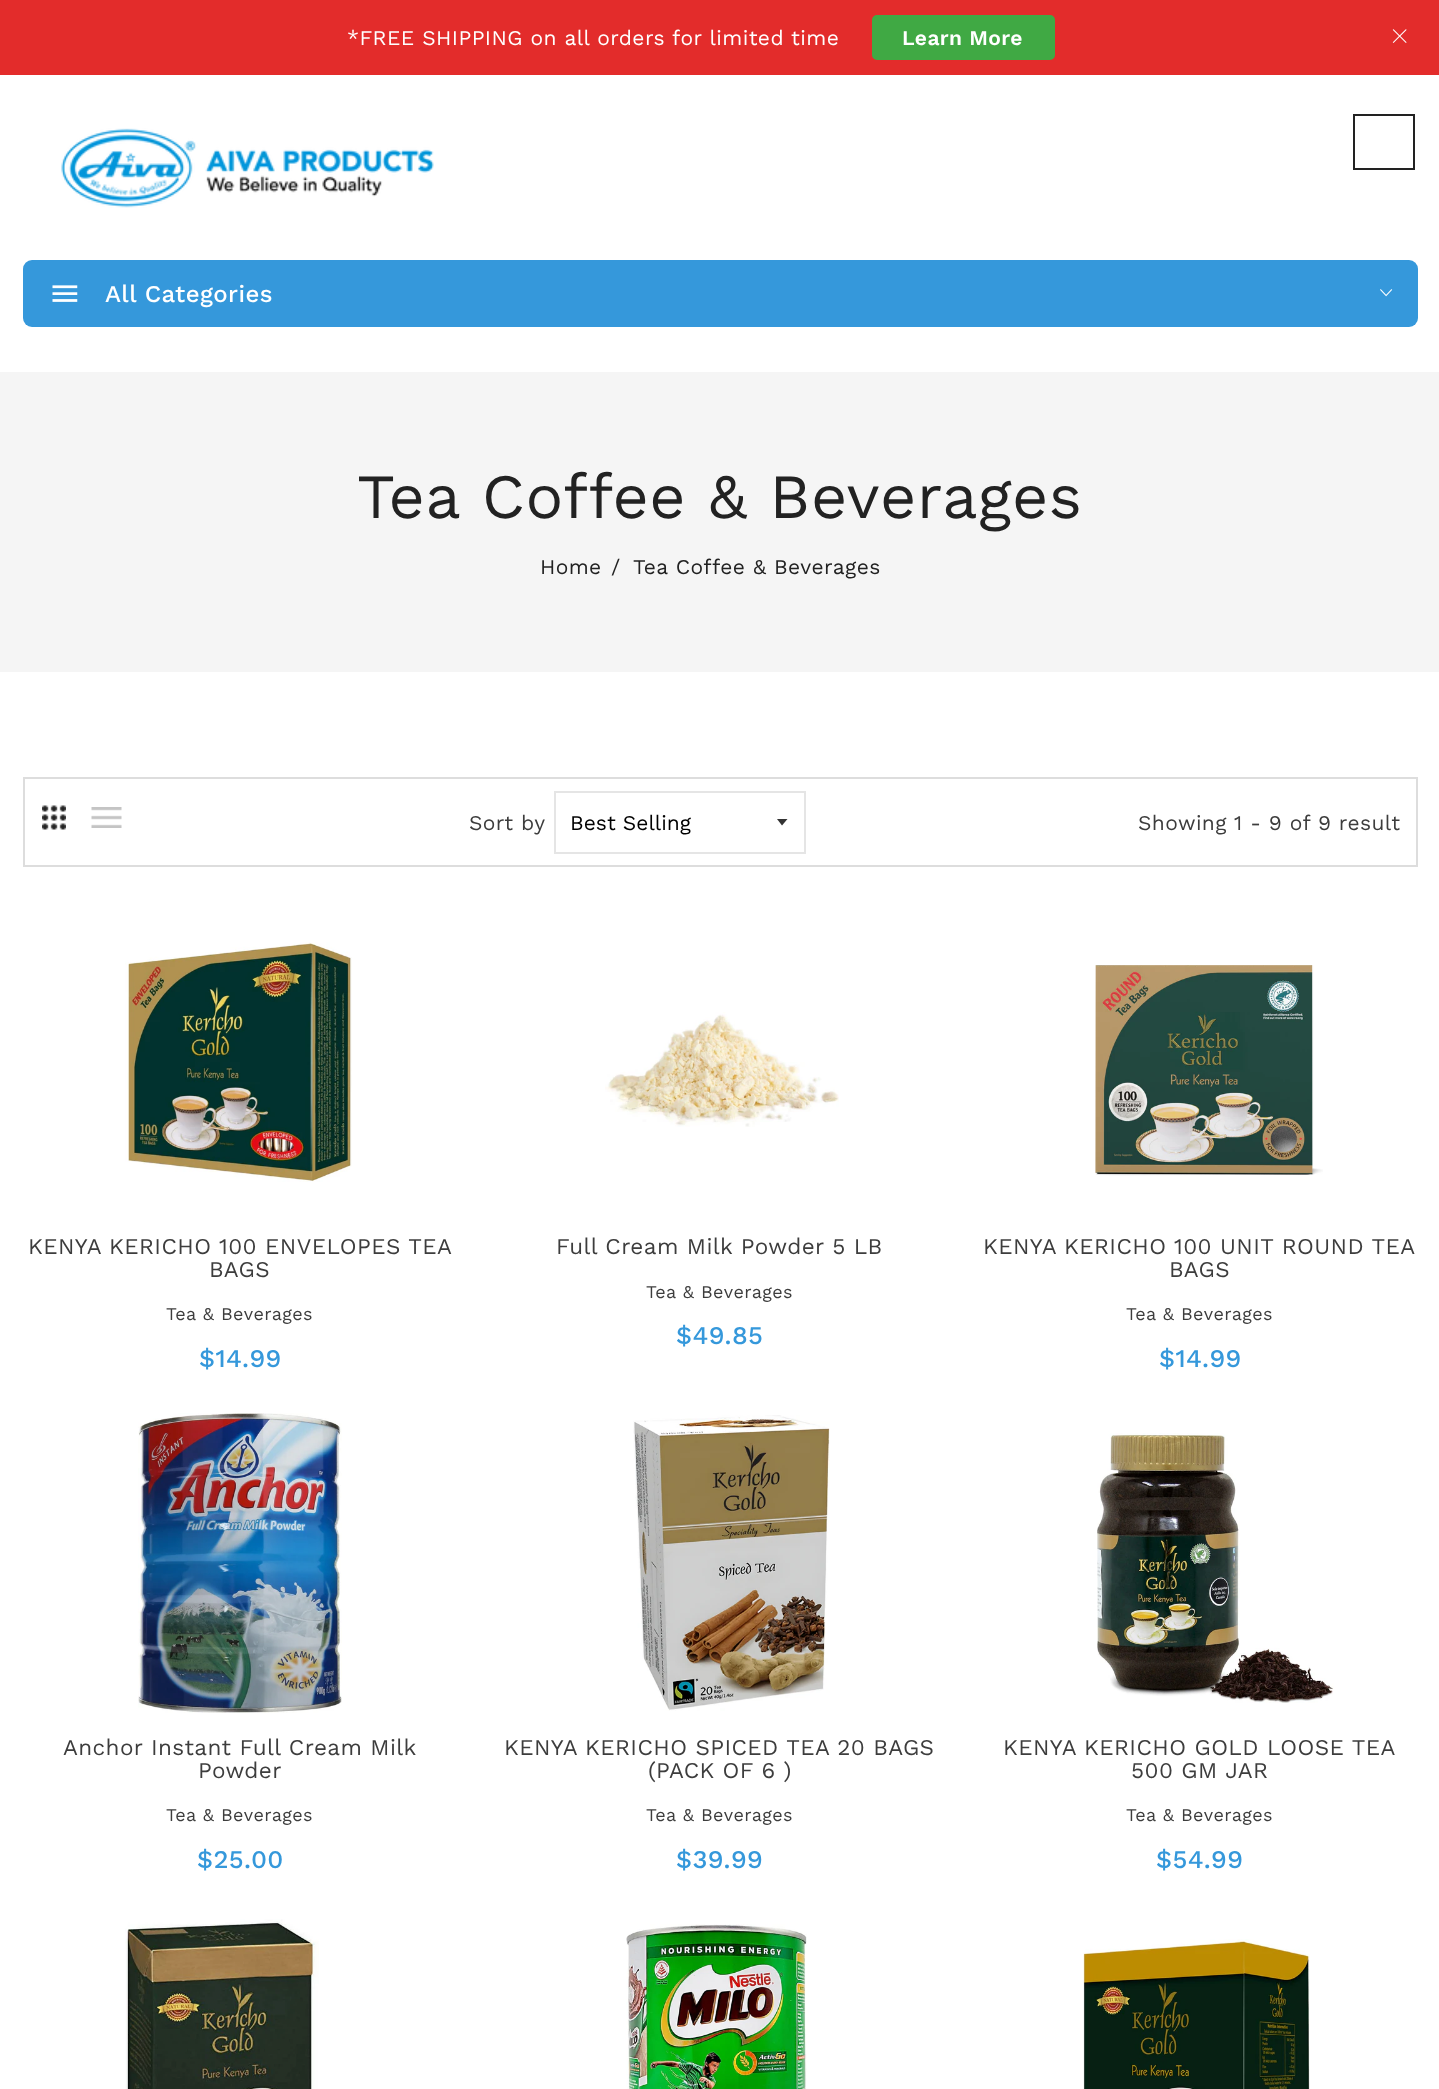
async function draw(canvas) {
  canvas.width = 1439
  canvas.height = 2089
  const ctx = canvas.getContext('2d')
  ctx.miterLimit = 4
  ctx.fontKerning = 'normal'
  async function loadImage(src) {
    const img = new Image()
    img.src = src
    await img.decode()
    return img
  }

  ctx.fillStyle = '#fff'
  ctx.fillRect(0, 0, 1439, 2089)
  ctx.fillStyle = '#e32c2b'
  ctx.fillRect(0, 0, 1439, 75)
  ctx.letterSpacing = '0.4px'
  ctx.font = '21px Work Sans'
  ctx.fillStyle = '#fff'
  ctx.fillText('*FREE SHIPPING on all orders for limited time', 347, 45)
  ctx.fillStyle = '#40a944'
  ctx.beginPath()
  ctx.roundRect(873, 16, 181, 43, 4)
  ctx.fill()
  ctx.strokeStyle = '#40a944'
  ctx.lineWidth = 2
  ctx.stroke()
  ctx.font = '600 21px Work Sans'
  ctx.fillStyle = '#fff'
  ctx.fillText('Learn More', 902, 45)
  ctx.drawImage(await loadImage('image0.png'), 1392, 29, 15, 14)
  ctx.strokeStyle = '#222'
  ctx.strokeRect(1354, 115, 60, 54)
  ctx.drawImage(await loadImage('image1.png'), 61, 128, 373, 80)
  ctx.fillStyle = '#3598db'
  ctx.beginPath()
  ctx.roundRect(23, 260, 1395, 67, 9)
  ctx.fill()
  ctx.drawImage(await loadImage('image2.png'), 52, 285, 26, 17)
  ctx.font = '500 24px Work Sans'
  ctx.fillStyle = '#fff'
  ctx.fillText('All Categories', 105, 302)
  ctx.drawImage(await loadImage('image3.png'), 1380, 289, 13, 8)
  ctx.fillStyle = '#f5f5f5'
  ctx.fillRect(0, 372, 1439, 300)
  ctx.font = '63px Work Sans'
  ctx.fillStyle = '#222'
  ctx.fillText('Tea Coffee & Beverages', 357, 518)
  ctx.font = '21px Work Sans'
  ctx.fillText('Home', 540, 574)
  ctx.fillText('/', 611, 574)
  ctx.fillText('Tea Coffee & Beverages', 633, 574)
  ctx.strokeStyle = '#ddd'
  ctx.strokeRect(24, 778, 1393, 88)
  ctx.drawImage(await loadImage('image4.png'), 42, 805, 24, 25)
  ctx.drawImage(await loadImage('image5.png'), 91, 807, 31, 21)
  ctx.fillStyle = '#3d3d3d'
  ctx.fillText('Sort by', 469, 830)
  ctx.fillStyle = '#333'
  ctx.beginPath()
  ctx.moveTo(777, 819)
  ctx.lineTo(782, 825.5)
  ctx.lineTo(787.5, 819)
  ctx.closePath()
  ctx.fill()
  ctx.strokeStyle = '#e5e5e5'
  ctx.strokeRect(555, 792, 250, 61)
  ctx.letterSpacing = '0px'
  ctx.fillStyle = '#000'
  ctx.fillText('Best Selling', 570, 830)
  ctx.letterSpacing = '0.4px'
  ctx.fillStyle = '#3d3d3d'
  ctx.fillText('Showing', 1138, 830)
  ctx.fillText('1 - 9 of 9 result', 1234, 830)
  ctx.drawImage(await loadImage('image6.png'), 125, 942, 227, 240)
  ctx.font = '22.5px Work Sans'
  ctx.fillText('KENYA KERICHO 100 ENVELOPES TEA', 28, 1254)
  ctx.fillText('BAGS', 209, 1277)
  ctx.font = '18px Work Sans'
  ctx.fillText('Tea & Beverages', 166, 1320)
  ctx.font = '500 25.5px Work Sans'
  ctx.fillStyle = '#3598db'
  ctx.fillText('$14.99', 199, 1367)
  ctx.drawImage(await loadImage('image7.png'), 605, 1012, 234, 115)
  ctx.font = '22.5px Work Sans'
  ctx.fillStyle = '#3d3d3d'
  ctx.fillText('Full Cream Milk Powder 5 LB', 556, 1254)
  ctx.font = '18px Work Sans'
  ctx.fillText('Tea & Beverages', 646, 1298)
  ctx.font = '500 25.5px Work Sans'
  ctx.fillStyle = '#3598db'
  ctx.fillText('$49.85', 676, 1344)
  ctx.drawImage(await loadImage('image8.png'), 1095, 965, 228, 211)
  ctx.font = '22.5px Work Sans'
  ctx.fillStyle = '#3d3d3d'
  ctx.fillText('KENYA KERICHO 100 UNIT ROUND TEA', 983, 1254)
  ctx.fillText('BAGS', 1169, 1277)
  ctx.font = '18px Work Sans'
  ctx.fillText('Tea & Beverages', 1126, 1320)
  ctx.font = '500 25.5px Work Sans'
  ctx.fillStyle = '#3598db'
  ctx.fillText('$14.99', 1159, 1367)
  ctx.drawImage(await loadImage('image9.png'), 138, 1413, 204, 300)
  ctx.font = '22.5px Work Sans'
  ctx.fillStyle = '#3d3d3d'
  ctx.fillText('Anchor Instant Full Cream Milk', 63, 1755)
  ctx.fillText('Powder', 198, 1778)
  ctx.font = '18px Work Sans'
  ctx.fillText('Tea & Beverages', 166, 1821)
  ctx.font = '500 25.5px Work Sans'
  ctx.fillStyle = '#3598db'
  ctx.fillText('$25.00', 197, 1868)
  ctx.drawImage(await loadImage('image10.png'), 633, 1415, 197, 296)
  ctx.font = '22.5px Work Sans'
  ctx.fillStyle = '#3d3d3d'
  ctx.fillText('KENYA KERICHO SPICED TEA 20 BAGS', 504, 1755)
  ctx.fillText('(PACK OF 6 )', 648, 1778)
  ctx.font = '18px Work Sans'
  ctx.fillText('Tea & Beverages', 646, 1821)
  ctx.font = '500 25.5px Work Sans'
  ctx.fillStyle = '#3598db'
  ctx.fillText('$39.99', 676, 1868)
  ctx.drawImage(await loadImage('image11.png'), 1097, 1433, 237, 270)
  ctx.font = '22.5px Work Sans'
  ctx.fillStyle = '#3d3d3d'
  ctx.fillText('KENYA KERICHO GOLD LOOSE TEA', 1003, 1755)
  ctx.fillText('500 GM JAR', 1131, 1778)
  ctx.font = '18px Work Sans'
  ctx.fillText('Tea & Beverages', 1126, 1821)
  ctx.font = '500 25.5px Work Sans'
  ctx.fillStyle = '#3598db'
  ctx.fillText('$54.99', 1156, 1868)
  ctx.drawImage(await loadImage('image12.png'), 125, 1919, 194, 170)
  ctx.drawImage(await loadImage('image13.png'), 626, 1924, 181, 165)
  ctx.drawImage(await loadImage('image14.png'), 1083, 1939, 227, 150)
}

draw(document.querySelector('canvas'))
